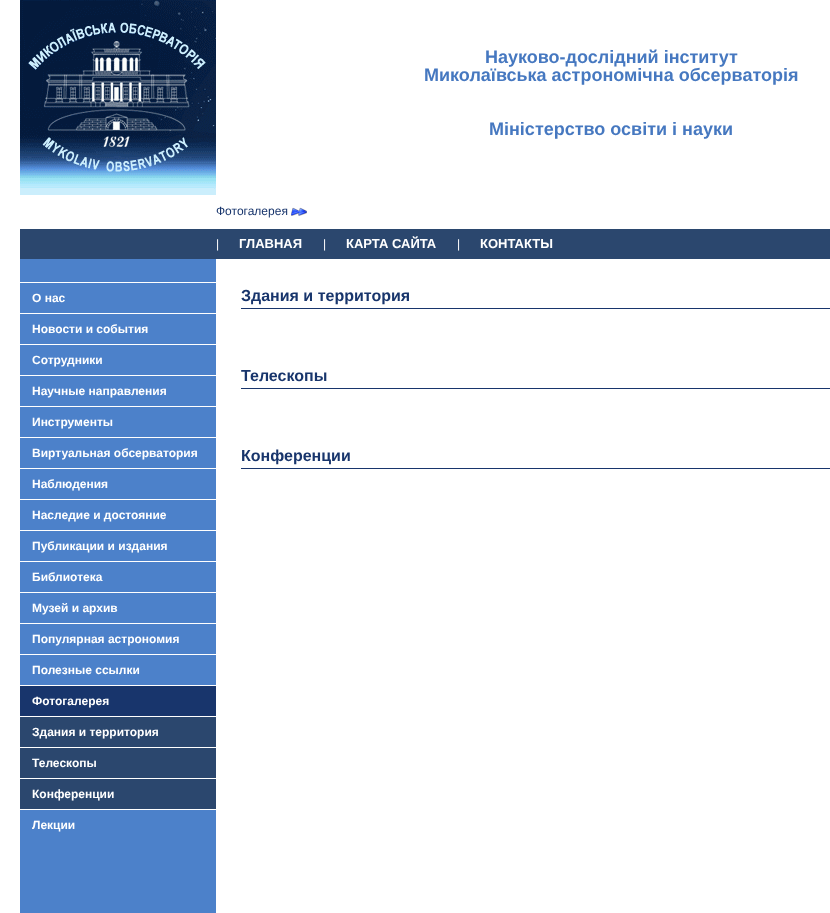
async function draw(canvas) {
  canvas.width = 830
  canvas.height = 913
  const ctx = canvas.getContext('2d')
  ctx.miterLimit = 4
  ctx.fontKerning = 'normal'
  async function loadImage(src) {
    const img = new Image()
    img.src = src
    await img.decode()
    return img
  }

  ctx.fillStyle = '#fff'
  ctx.fillRect(0, 0, 830, 913)
  ctx.drawImage(await loadImage('image0.png'), 20, 0, 196, 195)
  ctx.font = 'bold 18px Liberation Sans'
  ctx.fillStyle = '#4678c0'
  ctx.fillText('Науково-дослідний інститут', 485, 63)
  ctx.fillText('Миколаївська астрономічна обсерваторія', 424, 81)
  ctx.fillText('Міністерство освіти і науки', 489, 135)
  ctx.font = '12px Liberation Sans'
  ctx.fillStyle = '#18356c'
  ctx.fillText('Фотогалерея', 216, 215)
  ctx.drawImage(await loadImage('image1.png'), 291, 207, 16, 9)
  ctx.fillStyle = '#2b476e'
  ctx.fillRect(20, 229, 810, 30)
  ctx.fillStyle = '#fff'
  ctx.fillText('|', 216, 248)
  ctx.font = 'bold 13px Liberation Sans'
  ctx.fillText('ГЛАВНАЯ', 239, 248)
  ctx.font = '12px Liberation Sans'
  ctx.fillText('|', 323, 248)
  ctx.font = 'bold 13px Liberation Sans'
  ctx.fillText('КАРТА САЙТА', 346, 248)
  ctx.font = '12px Liberation Sans'
  ctx.fillText('|', 457, 248)
  ctx.font = 'bold 13px Liberation Sans'
  ctx.fillText('КОНТАКТЫ', 480, 248)
  ctx.fillStyle = '#4c81ca'
  ctx.fillRect(20, 259, 196, 654)
  ctx.fillStyle = '#fff'
  ctx.fillRect(20, 282, 196, 1)
  ctx.font = 'bold 12px Liberation Sans'
  ctx.fillText('О нас', 32, 302)
  ctx.fillRect(20, 313, 196, 1)
  ctx.fillText('Новости и события', 32, 333)
  ctx.fillRect(20, 344, 196, 1)
  ctx.fillText('Сотрудники', 32, 364)
  ctx.fillRect(20, 375, 196, 1)
  ctx.fillText('Научные направления', 32, 395)
  ctx.fillRect(20, 406, 196, 1)
  ctx.fillText('Инструменты', 32, 426)
  ctx.fillRect(20, 437, 196, 1)
  ctx.fillText('Виртуальная обсерватория', 32, 457)
  ctx.fillRect(20, 468, 196, 1)
  ctx.fillText('Наблюдения', 32, 488)
  ctx.fillRect(20, 499, 196, 1)
  ctx.fillText('Наследие и достояние', 32, 519)
  ctx.fillRect(20, 530, 196, 1)
  ctx.fillText('Публикации и издания', 32, 550)
  ctx.fillRect(20, 561, 196, 1)
  ctx.fillText('Библиотека', 32, 581)
  ctx.fillRect(20, 592, 196, 1)
  ctx.fillText('Музей и архив', 32, 612)
  ctx.fillRect(20, 623, 196, 1)
  ctx.fillText('Популярная астрономия', 32, 643)
  ctx.fillRect(20, 654, 196, 1)
  ctx.fillText('Полезные ссылки', 32, 674)
  ctx.fillStyle = '#18356c'
  ctx.fillRect(20, 686, 196, 30)
  ctx.fillStyle = '#fff'
  ctx.fillRect(20, 685, 196, 1)
  ctx.fillText('Фотогалерея', 32, 705)
  ctx.fillStyle = '#2b476e'
  ctx.fillRect(20, 717, 196, 30)
  ctx.fillStyle = '#fff'
  ctx.fillRect(20, 716, 196, 1)
  ctx.fillText('Здания и территория', 32, 736)
  ctx.fillStyle = '#2b476e'
  ctx.fillRect(20, 748, 196, 30)
  ctx.fillStyle = '#fff'
  ctx.fillRect(20, 747, 196, 1)
  ctx.fillText('Телескопы', 32, 767)
  ctx.fillStyle = '#2b476e'
  ctx.fillRect(20, 779, 196, 30)
  ctx.fillStyle = '#fff'
  ctx.fillRect(20, 778, 196, 1)
  ctx.fillText('Конференции', 32, 798)
  ctx.fillRect(20, 809, 196, 1)
  ctx.fillText('Лекции', 32, 829)
  ctx.font = 'bold 16px Liberation Sans'
  ctx.fillStyle = '#18356c'
  ctx.fillText('Здания и территория', 241, 301)
  ctx.fillRect(241, 308, 589, 1)
  ctx.fillText('Телескопы', 241, 381)
  ctx.fillRect(241, 388, 589, 1)
  ctx.fillText('Конференции', 241, 461)
  ctx.fillRect(241, 468, 589, 1)
}

draw(document.querySelector('canvas'))
